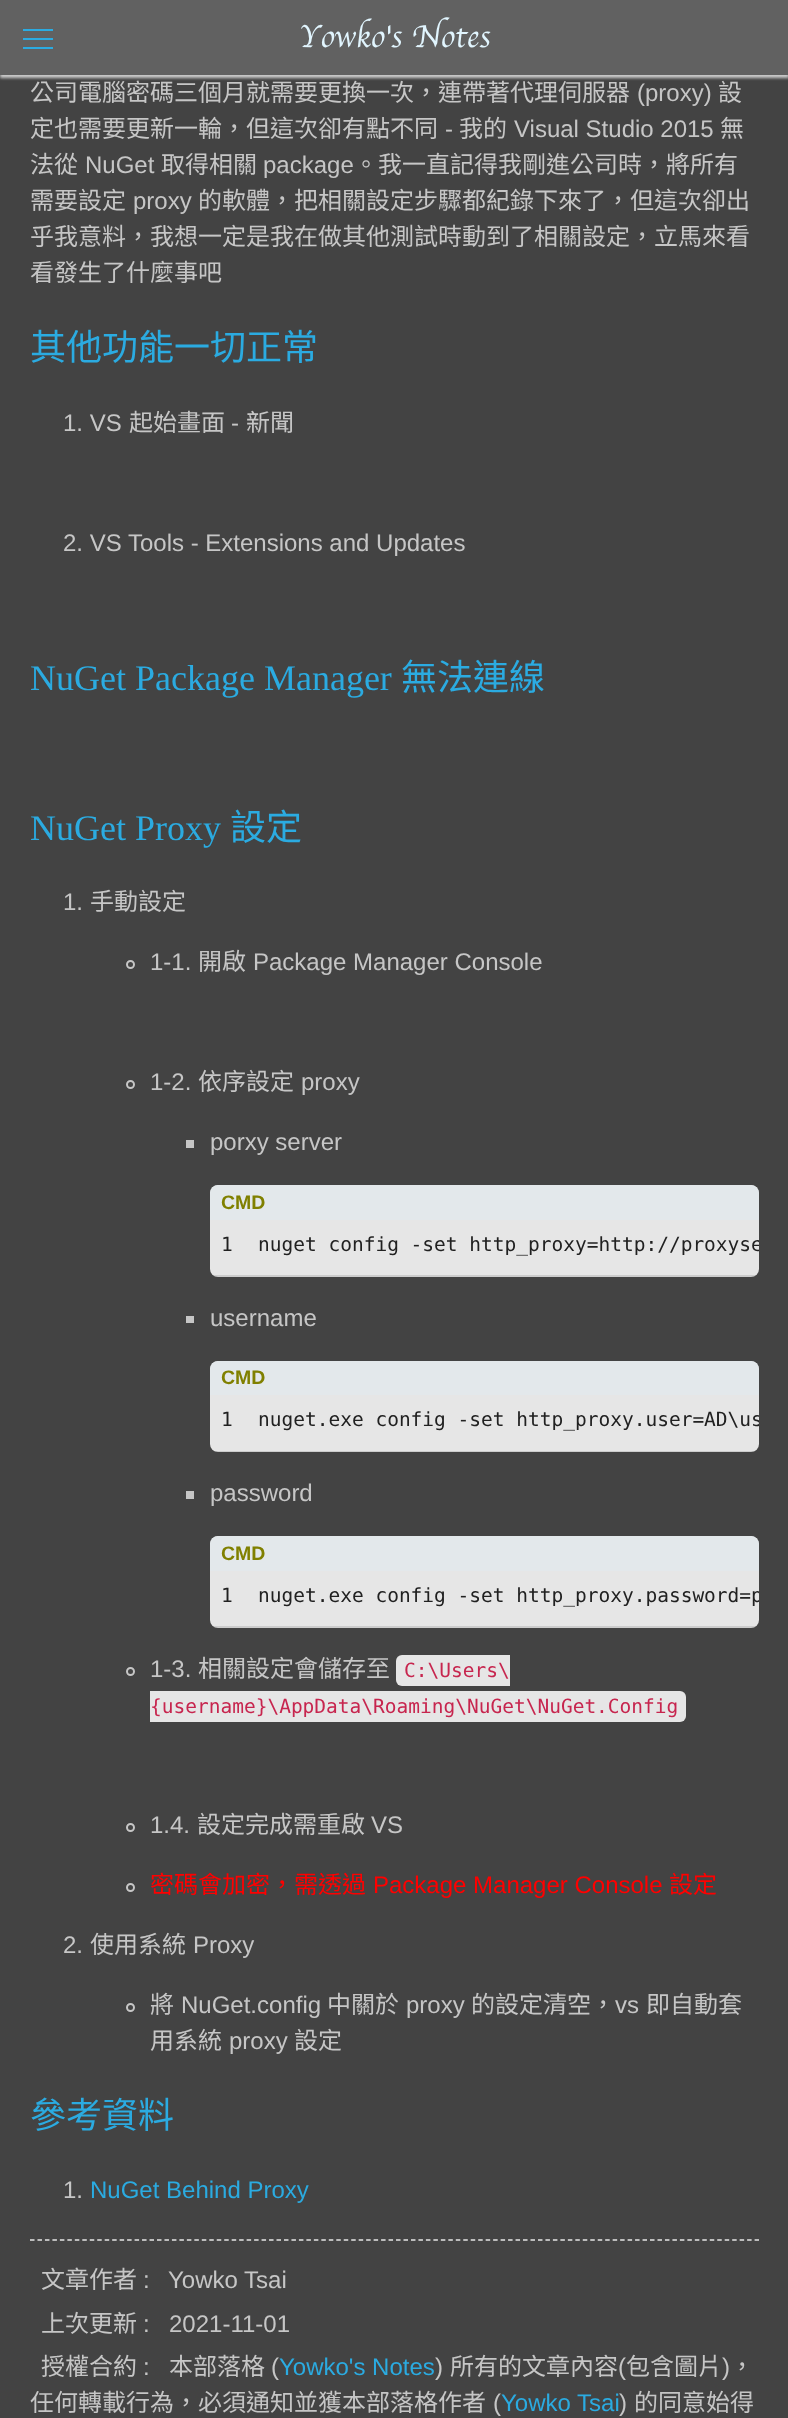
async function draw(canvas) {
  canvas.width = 788
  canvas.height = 2418
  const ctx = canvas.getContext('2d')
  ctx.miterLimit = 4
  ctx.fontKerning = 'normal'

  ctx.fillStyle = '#434343'
  ctx.fillRect(0, 0, 788, 2418)
  ctx.fillStyle = '#cacaca'
  ctx.filter = 'blur(1.5px)'
  ctx.beginPath()
  ctx.rect(0, 3, 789, 75)
  ctx.fill()
  ctx.filter = 'none'
  ctx.fillStyle = '#616161'
  ctx.fillRect(0, 0, 788, 75)
  ctx.fillStyle = '#2babe1'
  ctx.fillRect(23, 29, 30, 2)
  ctx.fillRect(23, 38, 30, 2)
  ctx.fillRect(23, 47, 30, 2)
  ctx.font = '100 33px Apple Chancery'
  ctx.fillStyle = '#e1f5fe'
  ctx.fillText('Yowko\'s Notes', 299, 47)
  ctx.font = '24px Noto Sans CJK TC'
  ctx.fillStyle = '#c6c6c6'
  ctx.fillText('公司電腦密碼三個月就需要更換一次，連帶著代理伺服器', 30, 101)
  ctx.font = '24px Liberation Sans'
  ctx.fillText('(proxy)', 637, 101)
  ctx.font = '24px Noto Sans CJK TC'
  ctx.fillText('設', 718, 101)
  ctx.fillText('定也需要更新一輪，但這次卻有點不同', 30, 137)
  ctx.font = '24px Liberation Sans'
  ctx.fillText('-', 445, 137)
  ctx.font = '24px Noto Sans CJK TC'
  ctx.fillText('我的', 459, 137)
  ctx.font = '24px Liberation Sans'
  ctx.fillText('Visual Studio 2015', 514, 137)
  ctx.font = '24px Noto Sans CJK TC'
  ctx.fillText('無', 720, 137)
  ctx.fillText('法從', 30, 173)
  ctx.font = '24px Liberation Sans'
  ctx.fillText('NuGet', 85, 173)
  ctx.font = '24px Noto Sans CJK TC'
  ctx.fillText('取得相關', 161, 173)
  ctx.font = '24px Liberation Sans'
  ctx.fillText('package', 263, 173)
  ctx.font = '24px Noto Sans CJK TC'
  ctx.fillText('。我一直記得我剛進公司時，將所有', 354, 173)
  ctx.fillText('需要設定', 30, 209)
  ctx.font = '24px Liberation Sans'
  ctx.fillText('proxy', 133, 209)
  ctx.font = '24px Noto Sans CJK TC'
  ctx.fillText('的軟體，把相關設定步驟都紀錄下來了，但這次卻出', 198, 209)
  ctx.fillText('乎我意料，我想一定是我在做其他測試時動到了相關設定，立馬來看', 30, 245)
  ctx.fillText('看發生了什麼事吧', 30, 281)
  ctx.font = '36px Noto Sans CJK TC'
  ctx.fillStyle = '#2babe1'
  ctx.fillText('其他功能一切正常', 30, 360)
  ctx.font = '24px Liberation Sans'
  ctx.fillStyle = '#c6c6c6'
  ctx.fillText('1. VS', 63, 431)
  ctx.font = '24px Noto Sans CJK TC'
  ctx.fillText('起始畫面', 129, 431)
  ctx.font = '24px Liberation Sans'
  ctx.fillText('-', 231, 431)
  ctx.font = '24px Noto Sans CJK TC'
  ctx.fillText('新聞', 246, 431)
  ctx.font = '24px Liberation Sans'
  ctx.fillText('2. VS Tools - Extensions and Updates', 63, 551)
  ctx.font = '36px Liberation Serif'
  ctx.fillStyle = '#2babe1'
  ctx.fillText('NuGet Package Manager', 30, 690)
  ctx.font = '36px Noto Sans CJK TC'
  ctx.fillText('無法連線', 401, 690)
  ctx.font = '36px Liberation Serif'
  ctx.fillText('NuGet Proxy', 30, 840)
  ctx.font = '36px Noto Sans CJK TC'
  ctx.fillText('設定', 230, 840)
  ctx.font = '24px Liberation Sans'
  ctx.fillStyle = '#c6c6c6'
  ctx.fillText('1.', 63, 910)
  ctx.font = '24px Noto Sans CJK TC'
  ctx.fillText('手動設定', 90, 910)
  ctx.beginPath()
  ctx.arc(130.5, 964.5, 3.5, 0, 2 * Math.PI)
  ctx.strokeStyle = '#c6c6c6'
  ctx.lineWidth = 2
  ctx.stroke()
  ctx.font = '24px Liberation Sans'
  ctx.fillText('1-1.', 150, 970)
  ctx.font = '24px Noto Sans CJK TC'
  ctx.fillText('開啟', 198, 970)
  ctx.font = '24px Liberation Sans'
  ctx.fillText('Package Manager Console', 253, 970)
  ctx.beginPath()
  ctx.arc(130.5, 1084.5, 3.5, 0, 2 * Math.PI)
  ctx.stroke()
  ctx.fillText('1-2.', 150, 1090)
  ctx.font = '24px Noto Sans CJK TC'
  ctx.fillText('依序設定', 198, 1090)
  ctx.font = '24px Liberation Sans'
  ctx.fillText('proxy', 301, 1090)
  ctx.fillRect(186, 1140, 8, 8)
  ctx.fillText('porxy server', 210, 1150)
  ctx.save()
  ctx.beginPath()
  ctx.roundRect(210, 1185, 549, 92, 8)
  ctx.clip()
  ctx.fillStyle = '#e6e6e6'
  ctx.beginPath()
  ctx.roundRect(210, 1185, 33, 90, [8, 0, 0, 0])
  ctx.fill()
  ctx.beginPath()
  ctx.roundRect(243, 1185, 516, 90, [0, 8, 0, 0])
  ctx.fill()
  ctx.restore()
  ctx.fillStyle = '#e3e8eb'
  ctx.beginPath()
  ctx.roundRect(210, 1185, 549, 35, [8, 8, 0, 0])
  ctx.fill()
  ctx.font = 'bold 19.5px Liberation Sans'
  ctx.fillStyle = '#808000'
  ctx.fillText('CMD', 221, 1209)
  ctx.save()
  ctx.beginPath()
  ctx.roundRect(210, 1185, 549, 92, 8)
  ctx.clip()
  ctx.fillStyle = '#ccc'
  ctx.fillRect(242, 1275, 517, 2)
  ctx.fillRect(210, 1275, 33, 2)
  ctx.restore()
  ctx.font = '19.5px DejaVu Sans Mono'
  ctx.fillStyle = '#212121'
  ctx.fillText('1', 221, 1251)
  ctx.save()
  ctx.beginPath()
  ctx.roundRect(210, 1185, 549, 92, 8)
  ctx.clip()
  ctx.fillText('nuget config -set http_proxy=http://proxyse', 258, 1251)
  ctx.restore()
  ctx.fillStyle = '#c6c6c6'
  ctx.fillRect(186, 1316, 8, 7)
  ctx.font = '24px Liberation Sans'
  ctx.fillText('username', 210, 1326)
  ctx.save()
  ctx.beginPath()
  ctx.roundRect(210, 1361, 549, 91, 8)
  ctx.clip()
  ctx.fillStyle = '#e6e6e6'
  ctx.beginPath()
  ctx.roundRect(210, 1361, 33, 90, [8, 0, 0, 0])
  ctx.fill()
  ctx.beginPath()
  ctx.roundRect(243, 1361, 516, 90, [0, 8, 0, 0])
  ctx.fill()
  ctx.restore()
  ctx.fillStyle = '#e3e8eb'
  ctx.beginPath()
  ctx.roundRect(210, 1361, 549, 34, [8, 8, 0, 0])
  ctx.fill()
  ctx.font = 'bold 19.5px Liberation Sans'
  ctx.fillStyle = '#808000'
  ctx.fillText('CMD', 221, 1384)
  ctx.save()
  ctx.beginPath()
  ctx.roundRect(210, 1361, 549, 91, 8)
  ctx.clip()
  ctx.fillStyle = '#ccc'
  ctx.fillRect(242, 1451, 517, 1)
  ctx.fillRect(210, 1451, 33, 1)
  ctx.restore()
  ctx.font = '19.5px DejaVu Sans Mono'
  ctx.fillStyle = '#212121'
  ctx.fillText('1', 221, 1426)
  ctx.save()
  ctx.beginPath()
  ctx.roundRect(210, 1361, 549, 91, 8)
  ctx.clip()
  ctx.fillText('nuget.exe config -set http_proxy.user=AD\\us', 258, 1426)
  ctx.restore()
  ctx.fillStyle = '#c6c6c6'
  ctx.fillRect(186, 1491, 8, 8)
  ctx.font = '24px Liberation Sans'
  ctx.fillText('password', 210, 1501)
  ctx.save()
  ctx.beginPath()
  ctx.roundRect(210, 1536, 549, 92, 8)
  ctx.clip()
  ctx.fillStyle = '#e6e6e6'
  ctx.beginPath()
  ctx.roundRect(210, 1536, 33, 90, [8, 0, 0, 0])
  ctx.fill()
  ctx.beginPath()
  ctx.roundRect(243, 1536, 516, 90, [0, 8, 0, 0])
  ctx.fill()
  ctx.restore()
  ctx.fillStyle = '#e3e8eb'
  ctx.beginPath()
  ctx.roundRect(210, 1536, 549, 35, [8, 8, 0, 0])
  ctx.fill()
  ctx.font = 'bold 19.5px Liberation Sans'
  ctx.fillStyle = '#808000'
  ctx.fillText('CMD', 221, 1560)
  ctx.save()
  ctx.beginPath()
  ctx.roundRect(210, 1536, 549, 92, 8)
  ctx.clip()
  ctx.fillStyle = '#ccc'
  ctx.fillRect(242, 1626, 517, 2)
  ctx.fillRect(210, 1626, 33, 2)
  ctx.restore()
  ctx.font = '19.5px DejaVu Sans Mono'
  ctx.fillStyle = '#212121'
  ctx.fillText('1', 221, 1602)
  ctx.save()
  ctx.beginPath()
  ctx.roundRect(210, 1536, 549, 92, 8)
  ctx.clip()
  ctx.fillText('nuget.exe config -set http_proxy.password=p', 258, 1602)
  ctx.restore()
  ctx.beginPath()
  ctx.arc(130.5, 1671.5, 3.5, 0, 2 * Math.PI)
  ctx.stroke()
  ctx.font = '24px Liberation Sans'
  ctx.fillStyle = '#c6c6c6'
  ctx.fillText('1-3.', 150, 1677)
  ctx.font = '24px Noto Sans CJK TC'
  ctx.fillText('相關設定會儲存至', 198, 1677)
  ctx.fillStyle = '#e6e6e6'
  ctx.beginPath()
  ctx.roundRect(396, 1655, 114, 31, [6, 0, 0, 6])
  ctx.fill()
  ctx.font = '19.5px DejaVu Sans Mono'
  ctx.fillStyle = '#c7254e'
  ctx.fillText('C:\\Users\\', 404, 1677)
  ctx.fillStyle = '#e6e6e6'
  ctx.beginPath()
  ctx.roundRect(150, 1691, 536, 31, [0, 6, 6, 0])
  ctx.fill()
  ctx.fillStyle = '#c7254e'
  ctx.fillText('{username}\\AppData\\Roaming\\NuGet\\NuGet.Config', 150, 1713)
  ctx.beginPath()
  ctx.arc(130.5, 1827.5, 3.5, 0, 2 * Math.PI)
  ctx.stroke()
  ctx.font = '24px Liberation Sans'
  ctx.fillStyle = '#c6c6c6'
  ctx.fillText('1.4.', 150, 1833)
  ctx.font = '24px Noto Sans CJK TC'
  ctx.fillText('設定完成需重啟', 197, 1833)
  ctx.font = '24px Liberation Sans'
  ctx.fillText('VS', 371, 1833)
  ctx.beginPath()
  ctx.arc(130.5, 1887.5, 3.5, 0, 2 * Math.PI)
  ctx.stroke()
  ctx.font = '24px Noto Sans CJK TC'
  ctx.fillStyle = '#f00'
  ctx.fillText('密碼會加密，需透過', 150, 1893)
  ctx.font = '24px Liberation Sans'
  ctx.fillText('Package Manager Console', 373, 1893)
  ctx.font = '24px Noto Sans CJK TC'
  ctx.fillText('設定', 669, 1893)
  ctx.font = '24px Liberation Sans'
  ctx.fillStyle = '#c6c6c6'
  ctx.fillText('2.', 63, 1953)
  ctx.font = '24px Noto Sans CJK TC'
  ctx.fillText('使用系統', 90, 1953)
  ctx.font = '24px Liberation Sans'
  ctx.fillText('Proxy', 193, 1953)
  ctx.beginPath()
  ctx.arc(130.5, 2007.5, 3.5, 0, 2 * Math.PI)
  ctx.stroke()
  ctx.font = '24px Noto Sans CJK TC'
  ctx.fillText('將', 150, 2013)
  ctx.font = '24px Liberation Sans'
  ctx.fillText('NuGet.config', 181, 2013)
  ctx.font = '24px Noto Sans CJK TC'
  ctx.fillText('中關於', 327, 2013)
  ctx.font = '24px Liberation Sans'
  ctx.fillText('proxy', 406, 2013)
  ctx.font = '24px Noto Sans CJK TC'
  ctx.fillText('的設定清空，', 471, 2013)
  ctx.font = '24px Liberation Sans'
  ctx.fillText('vs', 615, 2013)
  ctx.font = '24px Noto Sans CJK TC'
  ctx.fillText('即自動套', 646, 2013)
  ctx.fillText('用系統', 150, 2049)
  ctx.font = '24px Liberation Sans'
  ctx.fillText('proxy', 229, 2049)
  ctx.font = '24px Noto Sans CJK TC'
  ctx.fillText('設定', 294, 2049)
  ctx.font = '36px Noto Sans CJK TC'
  ctx.fillStyle = '#2babe1'
  ctx.fillText('參考資料', 30, 2128)
  ctx.font = '24px Liberation Sans'
  ctx.fillStyle = '#c6c6c6'
  ctx.fillText('1.', 63, 2198)
  ctx.fillStyle = '#2babe1'
  ctx.fillText('NuGet Behind Proxy', 90, 2198)
  ctx.beginPath()
  ctx.moveTo(30, 2240)
  ctx.lineTo(759, 2240)
  ctx.strokeStyle = '#e6e6e6'
  ctx.lineWidth = 1.5
  ctx.setLineDash([4.5, 2.97])
  ctx.stroke()
  ctx.font = '24px Noto Sans CJK TC'
  ctx.fillStyle = '#c6c6c6'
  ctx.fillText('文章作者', 41, 2288)
  ctx.font = '24px Liberation Sans'
  ctx.fillText(':', 143, 2288)
  ctx.fillText('Yowko Tsai', 168, 2288)
  ctx.font = '24px Noto Sans CJK TC'
  ctx.fillText('上次更新', 41, 2332)
  ctx.font = '24px Liberation Sans'
  ctx.fillText(':', 143, 2332)
  ctx.fillText('2021-11-01', 169, 2332)
  ctx.font = '24px Noto Sans CJK TC'
  ctx.fillText('授權合約', 41, 2375)
  ctx.font = '24px Liberation Sans'
  ctx.fillText(':', 143, 2375)
  ctx.font = '24px Noto Sans CJK TC'
  ctx.fillText('本部落格', 169, 2375)
  ctx.font = '24px Liberation Sans'
  ctx.fillText('(', 271, 2375)
  ctx.fillStyle = '#2babe1'
  ctx.fillText('Yowko\'s Notes', 279, 2375)
  ctx.fillStyle = '#c6c6c6'
  ctx.fillText(')', 435, 2375)
  ctx.font = '24px Noto Sans CJK TC'
  ctx.fillText('所有的文章內容', 450, 2375)
  ctx.font = '24px Liberation Sans'
  ctx.fillText('(', 618, 2375)
  ctx.font = '24px Noto Sans CJK TC'
  ctx.fillText('包含圖片', 626, 2375)
  ctx.font = '24px Liberation Sans'
  ctx.fillText(')', 722, 2375)
  ctx.font = '24px Noto Sans CJK TC'
  ctx.fillText('，', 730, 2375)
  ctx.fillText('任何轉載行為，必須通知並獲本部落格作者', 30, 2411)
  ctx.font = '24px Liberation Sans'
  ctx.fillText('(', 493, 2411)
  ctx.fillStyle = '#2babe1'
  ctx.fillText('Yowko Tsai', 501, 2411)
  ctx.fillStyle = '#c6c6c6'
  ctx.fillText(')', 619, 2411)
  ctx.font = '24px Noto Sans CJK TC'
  ctx.fillText('的同意始得', 634, 2411)
}

draw(document.querySelector('canvas'))
